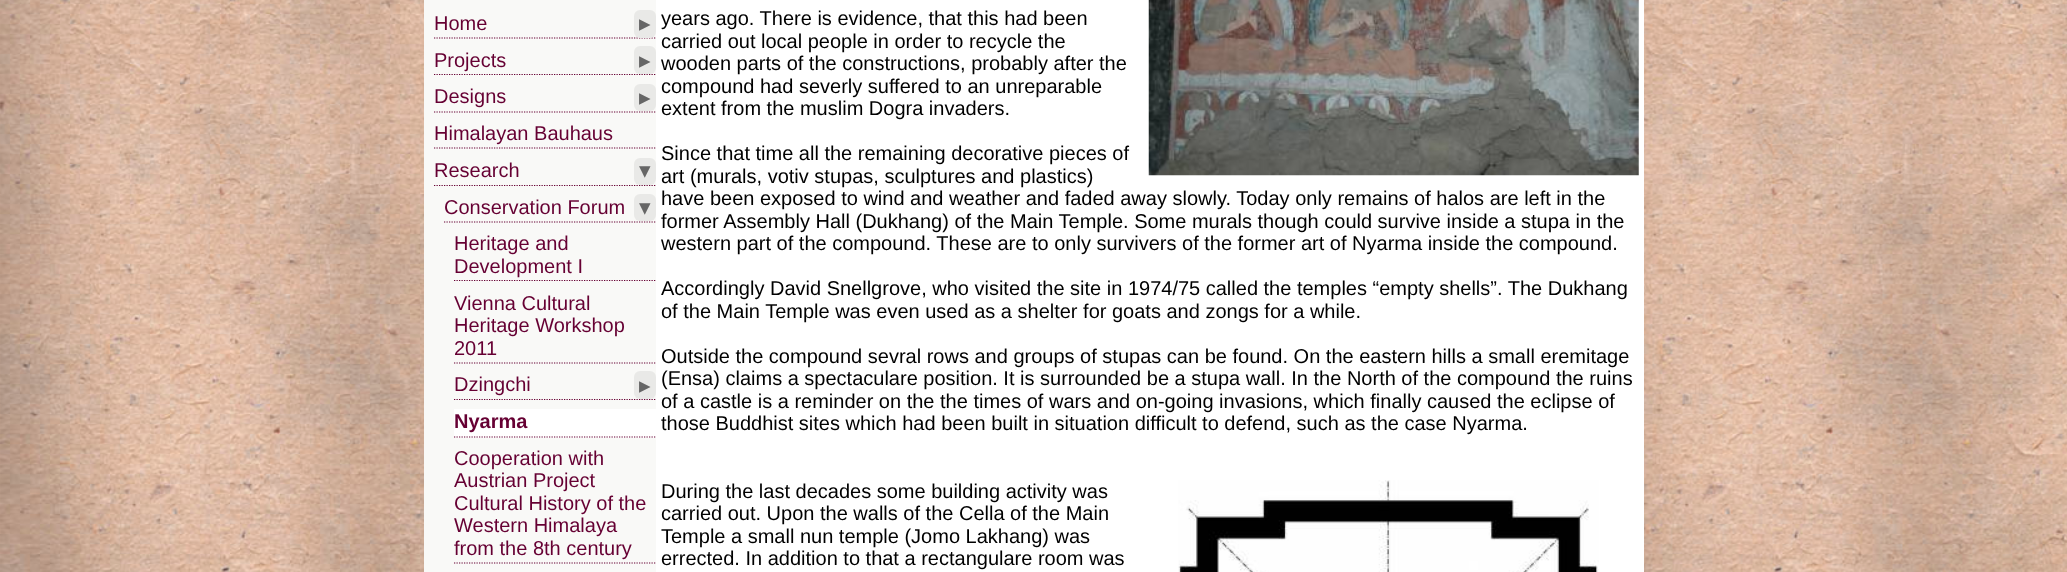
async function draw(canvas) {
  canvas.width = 2067
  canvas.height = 572
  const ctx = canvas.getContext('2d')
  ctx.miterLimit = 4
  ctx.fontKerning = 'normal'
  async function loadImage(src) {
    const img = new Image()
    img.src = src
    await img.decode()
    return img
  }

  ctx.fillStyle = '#fff'
  ctx.fillRect(0, 0, 2067, 572)
  ctx.drawImage(await loadImage('image0.png'), 0, 0, 2067, 572)
  ctx.fillRect(656, 0, 988, 572)
  ctx.fillStyle = '#f9f9f7'
  ctx.fillRect(424, 0, 232, 572)
  ctx.beginPath()
  ctx.moveTo(434, 38)
  ctx.lineTo(656, 38)
  ctx.strokeStyle = '#603'
  ctx.lineWidth = 1.2
  ctx.setLineDash([1.25, 1.25])
  ctx.stroke()
  ctx.font = '20px Liberation Sans'
  ctx.fillStyle = '#603'
  ctx.fillText('Home', 434, 30)
  ctx.fillStyle = '#e9e9e7'
  ctx.beginPath()
  ctx.roundRect(634, 10, 22, 28, 6)
  ctx.fill()
  ctx.font = '23px DejaVu Sans'
  ctx.fillStyle = '#666'
  ctx.fillText('▸', 639, 31)
  ctx.beginPath()
  ctx.moveTo(434, 74.5)
  ctx.lineTo(656, 74.5)
  ctx.stroke()
  ctx.font = '20px Liberation Sans'
  ctx.fillStyle = '#603'
  ctx.fillText('Projects', 434, 67)
  ctx.fillStyle = '#e9e9e7'
  ctx.beginPath()
  ctx.roundRect(634, 46, 22, 28, 6)
  ctx.fill()
  ctx.font = '23px DejaVu Sans'
  ctx.fillStyle = '#666'
  ctx.fillText('▸', 639, 68)
  ctx.beginPath()
  ctx.moveTo(434, 112)
  ctx.lineTo(656, 112)
  ctx.stroke()
  ctx.font = '20px Liberation Sans'
  ctx.fillStyle = '#603'
  ctx.fillText('Designs', 434, 103)
  ctx.fillStyle = '#e9e9e7'
  ctx.beginPath()
  ctx.roundRect(634, 84, 22, 27, 6)
  ctx.fill()
  ctx.font = '23px DejaVu Sans'
  ctx.fillStyle = '#666'
  ctx.fillText('▸', 639, 105)
  ctx.beginPath()
  ctx.moveTo(434, 148)
  ctx.lineTo(656, 148)
  ctx.stroke()
  ctx.font = '20px Liberation Sans'
  ctx.fillStyle = '#603'
  ctx.fillText('Himalayan Bauhaus', 434, 140)
  ctx.beginPath()
  ctx.moveTo(434, 185.5)
  ctx.lineTo(656, 185.5)
  ctx.stroke()
  ctx.fillText('Research', 434, 177)
  ctx.fillStyle = '#e9e9e7'
  ctx.beginPath()
  ctx.roundRect(634, 158, 22, 27, 6)
  ctx.fill()
  ctx.font = '23px DejaVu Sans'
  ctx.fillStyle = '#666'
  ctx.fillText('▾', 639, 178)
  ctx.beginPath()
  ctx.moveTo(444, 222)
  ctx.lineTo(656, 222)
  ctx.stroke()
  ctx.font = '20px Liberation Sans'
  ctx.fillStyle = '#603'
  ctx.fillText('Conservation Forum', 444, 214)
  ctx.fillStyle = '#e9e9e7'
  ctx.beginPath()
  ctx.roundRect(634, 194, 22, 27, 6)
  ctx.fill()
  ctx.font = '23px DejaVu Sans'
  ctx.fillStyle = '#666'
  ctx.fillText('▾', 639, 215)
  ctx.beginPath()
  ctx.moveTo(454, 280.5)
  ctx.lineTo(656, 280.5)
  ctx.stroke()
  ctx.font = '20px Liberation Sans'
  ctx.fillStyle = '#603'
  ctx.fillText('Heritage and', 454, 250)
  ctx.fillText('Development I', 454, 273)
  ctx.beginPath()
  ctx.moveTo(454, 363)
  ctx.lineTo(656, 363)
  ctx.stroke()
  ctx.fillText('Vienna Cultural', 454, 310)
  ctx.fillText('Heritage Workshop', 454, 332)
  ctx.fillText('2011', 454, 355)
  ctx.beginPath()
  ctx.moveTo(454, 399.5)
  ctx.lineTo(656, 399.5)
  ctx.stroke()
  ctx.fillText('Dzingchi', 454, 391)
  ctx.fillStyle = '#e9e9e7'
  ctx.beginPath()
  ctx.roundRect(634, 371, 22, 28, 6)
  ctx.fill()
  ctx.font = '23px DejaVu Sans'
  ctx.fillStyle = '#666'
  ctx.fillText('▸', 639, 393)
  ctx.fillStyle = '#fff'
  ctx.fillRect(454, 409, 202, 29)
  ctx.beginPath()
  ctx.moveTo(454, 437)
  ctx.lineTo(656, 437)
  ctx.stroke()
  ctx.font = 'bold 20px Liberation Sans'
  ctx.fillStyle = '#603'
  ctx.fillText('Nyarma', 454, 428)
  ctx.beginPath()
  ctx.moveTo(454, 563)
  ctx.lineTo(656, 563)
  ctx.stroke()
  ctx.font = '20px Liberation Sans'
  ctx.fillText('Cooperation with', 454, 465)
  ctx.fillText('Austrian Project', 454, 487)
  ctx.fillText('Cultural History of the', 454, 510)
  ctx.fillText('Western Himalaya', 454, 532)
  ctx.fillText('from the 8th century', 454, 555)
  ctx.fillStyle = '#000'
  ctx.fillText('years ago. There is evidence, that this had been', 661, 25)
  ctx.drawImage(await loadImage('image1.png'), 1148, 0, 491, 176)
  ctx.fillText('carried out local people in order to recycle the', 661, 48)
  ctx.fillText('wooden parts of the constructions, probably after the', 661, 70)
  ctx.fillText('compound had severly suffered to an unreparable', 661, 93)
  ctx.fillText('extent from the muslim Dogra invaders.', 661, 115)
  ctx.fillText('Since that time all the remaining decorative pieces of', 661, 160)
  ctx.fillText('art (murals, votiv stupas, sculptures and plastics)', 661, 183)
  ctx.fillText('have been exposed to wind and weather and faded away slowly. Today only remains of halos are left in the', 661, 205)
  ctx.fillText('former Assembly Hall (Dukhang) of the Main Temple. Some murals though could survive inside a stupa in the', 661, 228)
  ctx.fillText('western part of the compound. These are to only survivers of the former art of Nyarma inside the compound.', 661, 250)
  ctx.fillText('Accordingly David Snellgrove, who visited the site in 1974/75 called the temples “empty shells”. The Dukhang', 661, 295)
  ctx.fillText('of the Main Temple was even used as a shelter for goats and zongs for a while.', 661, 318)
  ctx.fillText('Outside the compound sevral rows and groups of stupas can be found. On the eastern hills a small eremitage', 661, 363)
  ctx.fillText('(Ensa) claims a spectaculare position. It is surrounded be a stupa wall. In the North of the compound the ruins', 661, 385)
  ctx.fillText('of a castle is a reminder on the the times of wars and on-going invasions, which finally caused the eclipse of', 661, 408)
  ctx.fillText('those Buddhist sites which had been built in situation difficult to defend, such as the case Nyarma.', 661, 430)
  ctx.fillText('During the last decades some building activity was', 661, 498)
  ctx.drawImage(await loadImage('image2.png'), 1178, 480, 421, 92)
  ctx.fillText('carried out. Upon the walls of the Cella of the Main', 661, 520)
  ctx.fillText('Temple a small nun temple (Jomo Lakhang) was', 661, 543)
  ctx.fillText('errected. In addition to that a rectangulare room was', 661, 565)
}

draw(document.querySelector('canvas'))
